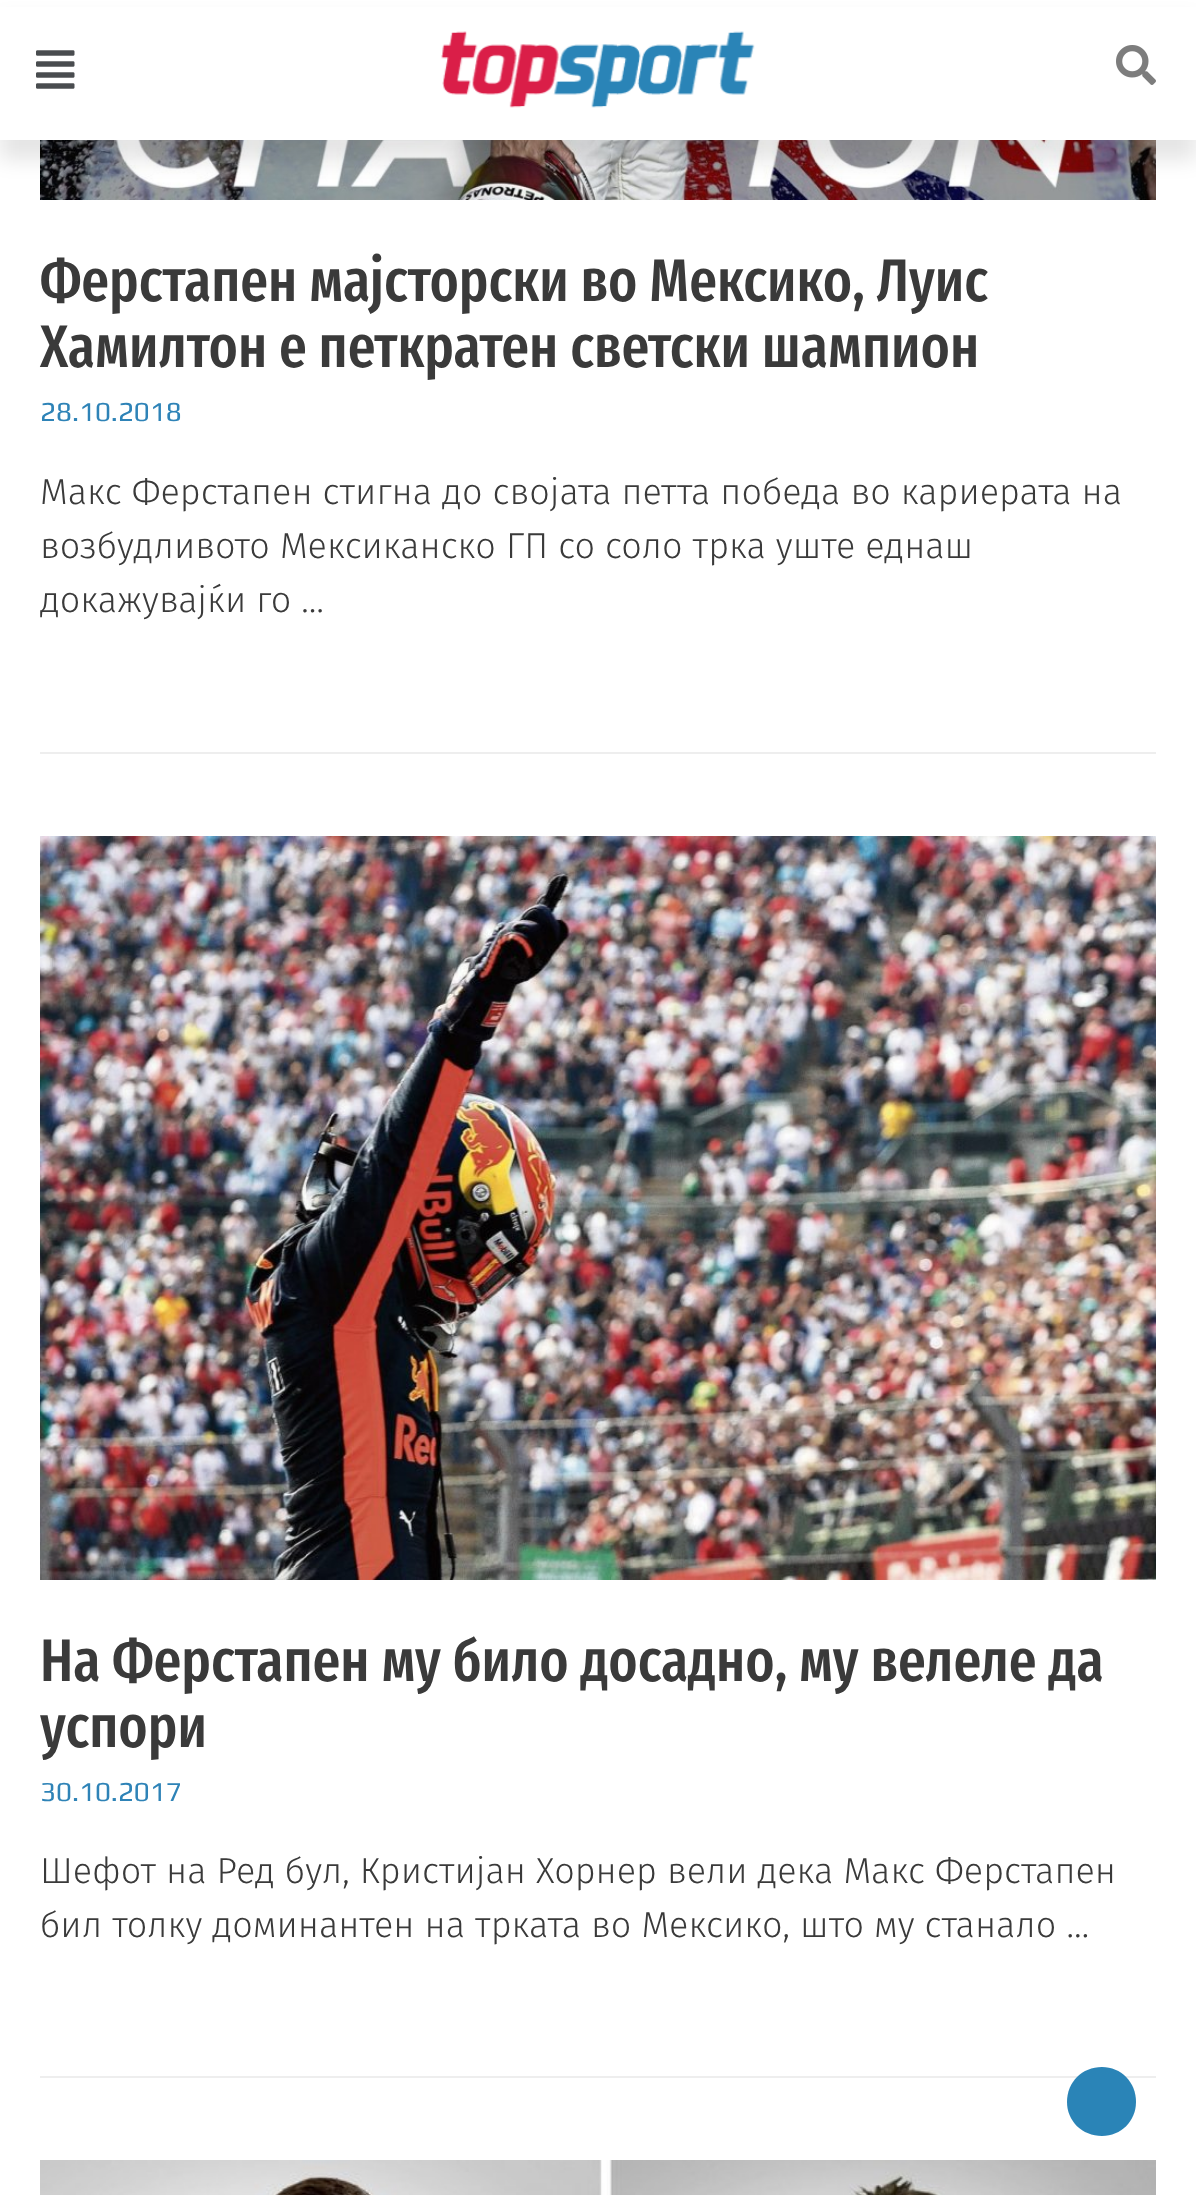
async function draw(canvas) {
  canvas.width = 1196
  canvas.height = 2195
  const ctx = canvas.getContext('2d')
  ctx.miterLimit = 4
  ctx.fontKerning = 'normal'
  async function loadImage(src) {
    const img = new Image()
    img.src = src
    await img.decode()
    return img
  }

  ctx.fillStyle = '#fff'
  ctx.fillRect(0, 0, 1196, 2195)
  ctx.drawImage(await loadImage('image3.png'), 40, 140, 1116, 60)
  ctx.fillStyle = '#0000001a'
  ctx.filter = 'blur(10px)'
  ctx.beginPath()
  ctx.rect(0, 20, 1196, 140)
  ctx.fill()
  ctx.filter = 'none'
  ctx.fillStyle = '#fff'
  ctx.fillRect(0, 7, 1196, 133)
  ctx.drawImage(await loadImage('image0.png'), 36, 50, 39, 39)
  ctx.drawImage(await loadImage('image1.png'), 441, 31, 314, 77)
  ctx.drawImage(await loadImage('image2.png'), 1116, 45, 40, 40)
  ctx.fillStyle = '#eee'
  ctx.fillRect(40, 752, 1116, 2)
  ctx.font = '500 60px Fira Sans Extra Condensed'
  ctx.fillStyle = '#3a3a3a'
  ctx.fillText('Ферстапен мајсторски во Мексико, Луис', 40, 301)
  ctx.fillText('Хамилтон е петкратен светски шампион', 40, 367)
  ctx.font = '27.5px Play'
  ctx.fillStyle = '#2e83b7'
  ctx.fillText('28.10.2018', 40, 421)
  ctx.font = '300 36px Fira Sans'
  ctx.fillStyle = '#3a3a3a'
  ctx.fillText('Макс Ферстапен стигна до својата петта победа во кариерата на', 40, 504)
  ctx.fillText('возбудливото Мексиканско ГП со соло трка уште еднаш', 40, 558)
  ctx.fillText('докажувајќи го …', 40, 612)
  ctx.fillStyle = '#eee'
  ctx.fillRect(40, 2076, 1116, 2)
  ctx.drawImage(await loadImage('image4.png'), 40, 836, 1116, 744)
  ctx.font = '500 60px Fira Sans Extra Condensed'
  ctx.fillStyle = '#3a3a3a'
  ctx.fillText('На Ферстапен му било досадно, му велеле да', 40, 1681)
  ctx.fillText('успори', 40, 1747)
  ctx.font = '27.5px Play'
  ctx.fillStyle = '#2e83b7'
  ctx.fillText('30.10.2017', 40, 1801)
  ctx.font = '300 36px Fira Sans'
  ctx.fillStyle = '#3a3a3a'
  ctx.fillText('Шефот на Ред бул, Кристијан Хорнер вели дека Макс Ферстапен', 40, 1883)
  ctx.fillText('бил толку доминантен на трката во Мексико, што му станало …', 40, 1937)
  ctx.drawImage(await loadImage('image5.png'), 40, 2160, 1116, 35)
  ctx.fillStyle = '#2a84b7'
  ctx.beginPath()
  ctx.moveTo(1102, 2136)
  ctx.bezierCurveTo(1082, 2136, 1067, 2121, 1067, 2102)
  ctx.bezierCurveTo(1067, 2082, 1082, 2067, 1102, 2067)
  ctx.bezierCurveTo(1121, 2067, 1136, 2082, 1136, 2102)
  ctx.bezierCurveTo(1136, 2121, 1121, 2136, 1102, 2136)
  ctx.closePath()
  ctx.fill()
}

draw(document.querySelector('canvas'))
